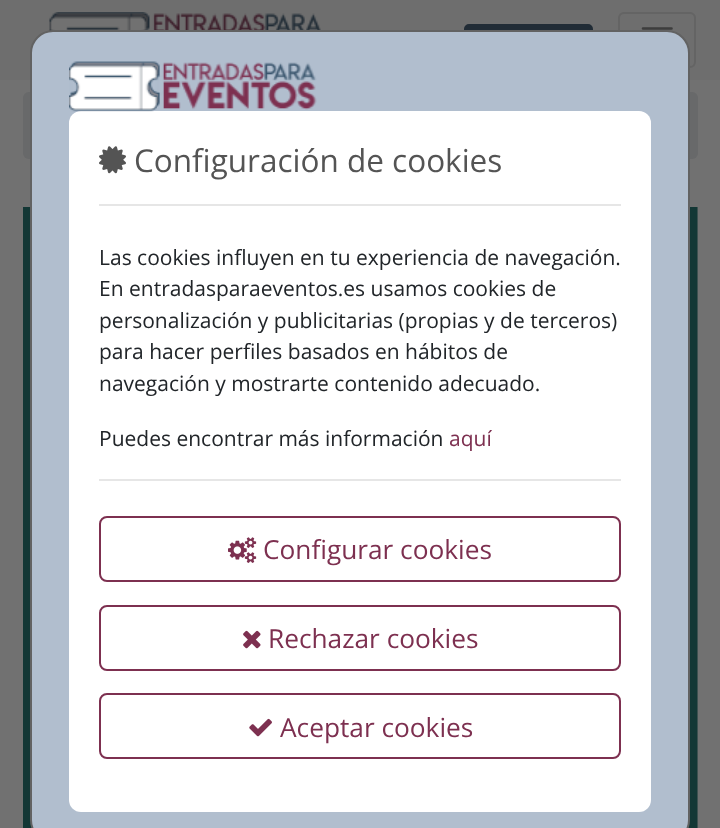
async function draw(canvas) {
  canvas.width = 720
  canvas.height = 828
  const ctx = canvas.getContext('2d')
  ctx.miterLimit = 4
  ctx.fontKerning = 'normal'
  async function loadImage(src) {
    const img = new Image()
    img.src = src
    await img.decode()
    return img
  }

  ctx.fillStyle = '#717171'
  ctx.fillRect(0, 0, 720, 828)
  ctx.fillStyle = '#6e6e6e'
  ctx.fillRect(0, 0, 720, 80)
  ctx.drawImage(await loadImage('image0.png'), 49, 12, 272, 19)
  ctx.fillStyle = '#212c36'
  ctx.beginPath()
  ctx.roundRect(465, 25, 127, 31, 4)
  ctx.fill()
  ctx.strokeStyle = '#212c36'
  ctx.lineWidth = 2
  ctx.stroke()
  ctx.beginPath()
  ctx.roundRect(619, 13, 76, 54, 5)
  ctx.strokeStyle = '#646464'
  ctx.stroke()
  ctx.beginPath()
  ctx.moveTo(643, 28.5)
  ctx.lineTo(671.5, 28.5)
  ctx.moveTo(643, 39)
  ctx.lineTo(671.5, 39)
  ctx.moveTo(643, 49.5)
  ctx.lineTo(671.5, 49.5)
  ctx.strokeStyle = '#3d3d3d'
  ctx.lineWidth = 2.6
  ctx.lineCap = 'round'
  ctx.stroke()
  ctx.fillStyle = '#68696a'
  ctx.beginPath()
  ctx.roundRect(23, 92, 675, 67, 6)
  ctx.fill()
  ctx.drawImage(await loadImage('image1.png'), 23, 207, 675, 621)
  ctx.fillStyle = '#b1bece'
  ctx.beginPath()
  ctx.roundRect(31, 31, 658, 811, 22)
  ctx.fill()
  ctx.strokeStyle = '#626262'
  ctx.lineWidth = 2
  ctx.stroke()
  ctx.fillStyle = '#fff'
  ctx.beginPath()
  ctx.roundRect(69, 111, 582, 701, 12)
  ctx.fill()
  ctx.drawImage(await loadImage('image2.png'), 69, 61, 248, 51)
  ctx.drawImage(await loadImage('image3.png'), 99, 146, 27, 28)
  ctx.font = '31.5px Open Sans'
  ctx.fillStyle = '#545454'
  ctx.fillText('Configuración de cookies', 134, 172)
  ctx.fillStyle = '#e6e6e6'
  ctx.fillRect(99, 204, 522, 2)
  ctx.font = '21px Open Sans'
  ctx.fillStyle = '#212529'
  ctx.fillText('Las cookies influyen en tu experiencia de navegación.', 99, 265)
  ctx.fillText('En entradasparaeventos.es usamos cookies de', 99, 296)
  ctx.fillText('personalización y publicitarias (propias y de terceros)', 99, 328)
  ctx.fillText('para hacer perfiles basados en hábitos de', 99, 359)
  ctx.fillText('navegación y mostrarte contenido adecuado.', 99, 391)
  ctx.fillText('Puedes encontrar más información', 99, 446)
  ctx.fillStyle = '#7d3050'
  ctx.fillText('aquí', 449, 446)
  ctx.fillStyle = '#e6e6e6'
  ctx.fillRect(99, 479, 522, 2)
  ctx.beginPath()
  ctx.roundRect(100, 517, 520, 64, 7)
  ctx.strokeStyle = '#7d3050'
  ctx.stroke()
  ctx.drawImage(await loadImage('image4.png'), 228, 537, 29, 26)
  ctx.font = '26.25px Open Sans'
  ctx.fillStyle = '#7d3050'
  ctx.fillText('Configurar cookies', 263, 559)
  ctx.beginPath()
  ctx.roundRect(100, 606, 520, 64, 7)
  ctx.stroke()
  ctx.drawImage(await loadImage('image5.png'), 243, 630, 18, 19)
  ctx.fillText('Rechazar cookies', 268, 648)
  ctx.beginPath()
  ctx.roundRect(100, 694, 520, 64, 7)
  ctx.stroke()
  ctx.drawImage(await loadImage('image6.png'), 249, 718, 23, 19)
  ctx.fillText('Aceptar cookies', 280, 737)
}

draw(document.querySelector('canvas'))
